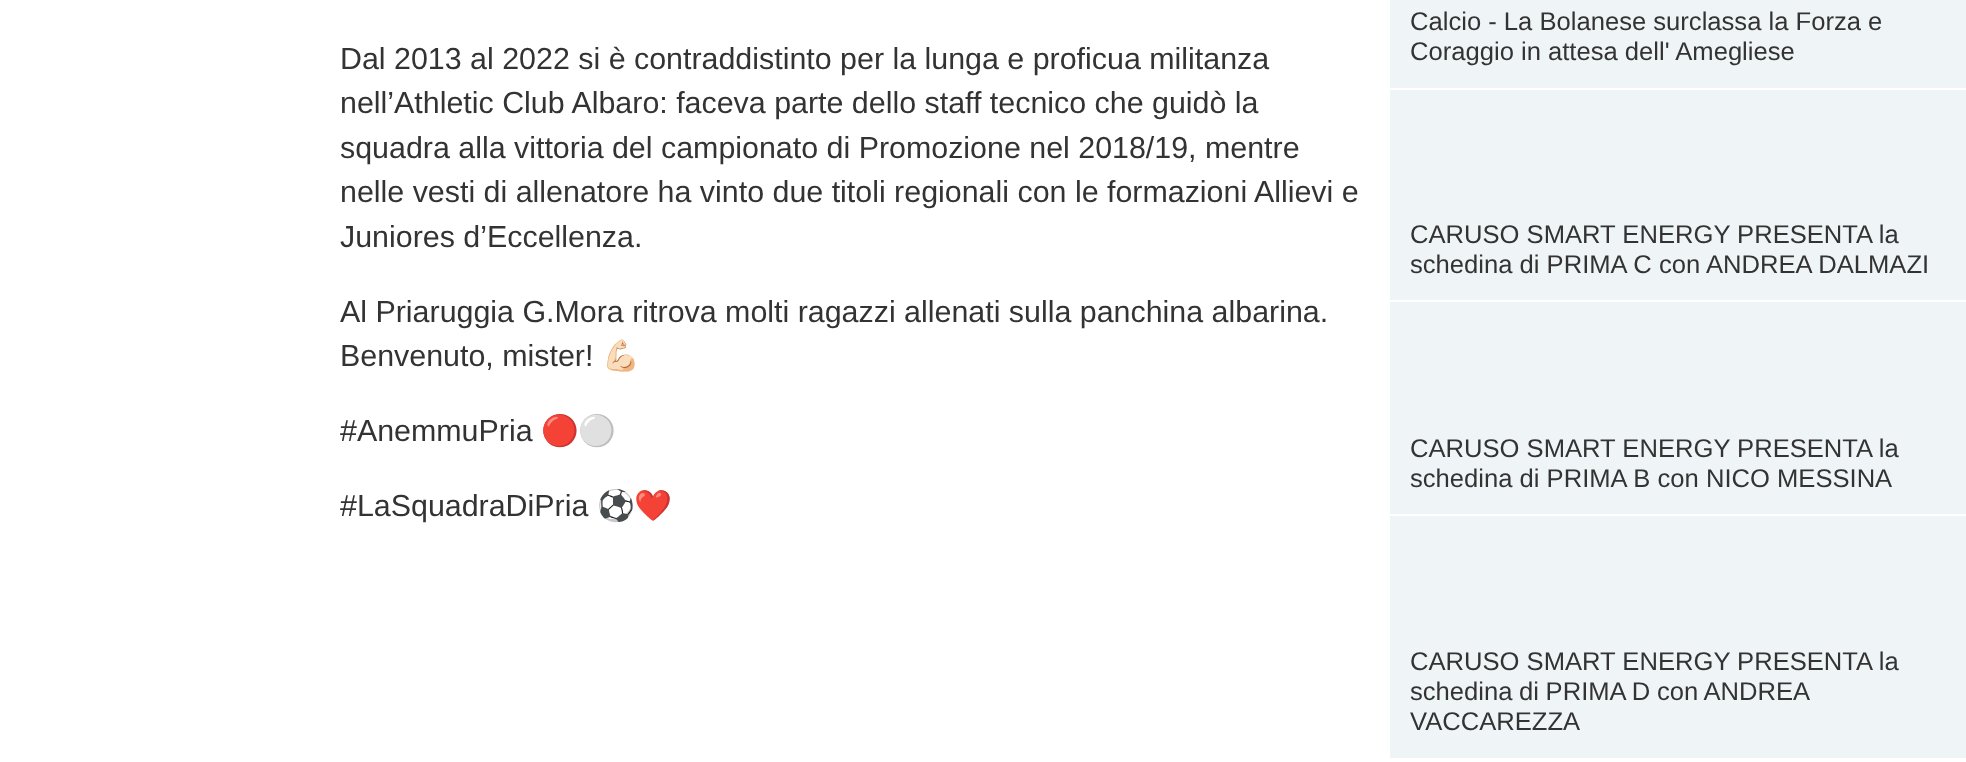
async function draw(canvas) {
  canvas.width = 1966
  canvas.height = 762
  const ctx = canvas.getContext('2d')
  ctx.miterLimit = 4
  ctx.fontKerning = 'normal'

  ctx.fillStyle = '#fff'
  ctx.fillRect(0, 0, 1966, 762)
  ctx.font = '30.4px Liberation Sans'
  ctx.fillStyle = '#333'
  ctx.fillText('Dal 2013 al 2022 si è contraddistinto per la lunga e proficua militanza', 340, 69)
  ctx.fillText('nell’Athletic Club Albaro: faceva parte dello staff tecnico che guidò la', 340, 113)
  ctx.fillText('squadra alla vittoria del campionato di Promozione nel 2018/19, mentre', 340, 158)
  ctx.fillText('nelle vesti di allenatore ha vinto due titoli regionali con le formazioni Allievi e', 340, 202)
  ctx.fillText('Juniores d’Eccellenza.', 340, 247)
  ctx.fillText('Al Priaruggia G.Mora ritrova molti ragazzi allenati sulla panchina albarina.', 340, 322)
  ctx.fillText('Benvenuto, mister!', 340, 366)
  ctx.font = '30.4px Noto Color Emoji'
  ctx.fillText('💪🏻', 602, 366)
  ctx.font = '30.4px Liberation Sans'
  ctx.fillText('#AnemmuPria', 340, 441)
  ctx.font = '30.4px Noto Color Emoji'
  ctx.fillText('🔴⚪️', 541, 441)
  ctx.font = '30.4px Liberation Sans'
  ctx.fillText('#LaSquadraDiPria', 340, 516)
  ctx.font = '30.4px Noto Color Emoji'
  ctx.fillText('⚽️❤️', 597, 516)
  ctx.fillStyle = '#eff4f7'
  ctx.fillRect(1390, 0, 576, 88)
  ctx.font = '25.6px Liberation Sans'
  ctx.fillStyle = '#333'
  ctx.fillText('Calcio - La Bolanese surclassa la Forza e', 1410, 30)
  ctx.fillText('Coraggio in attesa dell\' Amegliese', 1410, 60)
  ctx.fillStyle = '#eff4f7'
  ctx.fillRect(1390, 90, 576, 210)
  ctx.fillStyle = '#333'
  ctx.fillText('CARUSO SMART ENERGY PRESENTA la', 1410, 243)
  ctx.fillText('schedina di PRIMA C con ANDREA DALMAZI', 1410, 273)
  ctx.fillStyle = '#eff4f7'
  ctx.fillRect(1390, 302, 576, 212)
  ctx.fillStyle = '#333'
  ctx.fillText('CARUSO SMART ENERGY PRESENTA la', 1410, 457)
  ctx.fillText('schedina di PRIMA B con NICO MESSINA', 1410, 487)
  ctx.fillStyle = '#eff4f7'
  ctx.fillRect(1390, 516, 576, 242)
  ctx.fillStyle = '#333'
  ctx.fillText('CARUSO SMART ENERGY PRESENTA la', 1410, 670)
  ctx.wordSpacing = '-0.5px'
  ctx.fillText('schedina di PRIMA D con ANDREA', 1410, 700)
  ctx.wordSpacing = '0px'
  ctx.fillText('VACCAREZZA', 1410, 730)
}

draw(document.querySelector('canvas'))
